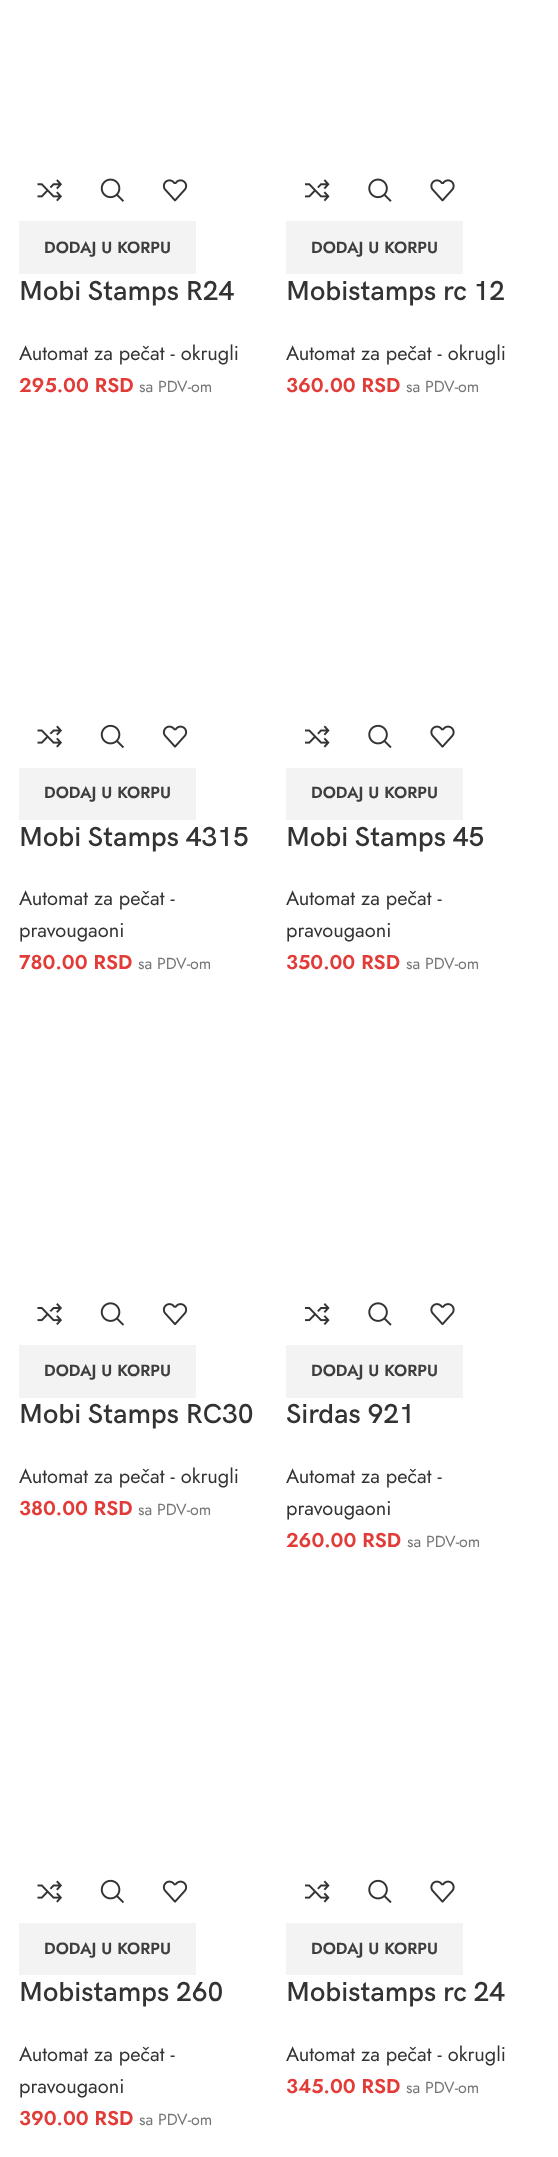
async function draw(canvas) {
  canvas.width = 558
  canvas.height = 2157
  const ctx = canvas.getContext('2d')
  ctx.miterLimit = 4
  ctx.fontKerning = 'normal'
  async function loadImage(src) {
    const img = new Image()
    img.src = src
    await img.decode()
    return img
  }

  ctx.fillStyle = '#fff'
  ctx.fillRect(0, 0, 558, 2157)
  ctx.drawImage(await loadImage('image0.png'), 37, 179, 25, 23)
  ctx.drawImage(await loadImage('image1.png'), 100, 178, 24, 24)
  ctx.drawImage(await loadImage('image2.png'), 162, 179, 26, 23)
  ctx.fillStyle = '#f3f3f3'
  ctx.fillRect(19, 221, 177, 53)
  ctx.font = '600 16.25px Jost'
  ctx.fillStyle = '#3e3e3e'
  ctx.fillText('DODAJ U KORPU', 44, 253)
  ctx.font = '600 27.5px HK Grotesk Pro'
  ctx.fillStyle = '#333'
  ctx.fillText('Mobi Stamps R24', 19, 300)
  ctx.font = '20px Jost'
  ctx.fillText('Automat za pečat - okrugli', 19, 360)
  ctx.font = '600 20px Jost'
  ctx.fillStyle = '#e23c39'
  ctx.fillText('295.00 RSD', 19, 392)
  ctx.font = '16px Jost'
  ctx.fillStyle = '#767676'
  ctx.fillText('sa PDV-om', 139, 392)
  ctx.drawImage(await loadImage('image3.png'), 305, 179, 25, 23)
  ctx.drawImage(await loadImage('image4.png'), 368, 178, 24, 24)
  ctx.drawImage(await loadImage('image5.png'), 430, 179, 25, 23)
  ctx.fillStyle = '#f3f3f3'
  ctx.fillRect(286, 221, 177, 53)
  ctx.font = '600 16.25px Jost'
  ctx.fillStyle = '#3e3e3e'
  ctx.fillText('DODAJ U KORPU', 311, 253)
  ctx.font = '600 27.5px HK Grotesk Pro'
  ctx.fillStyle = '#333'
  ctx.fillText('Mobistamps rc 12', 286, 300)
  ctx.font = '20px Jost'
  ctx.fillText('Automat za pečat - okrugli', 286, 360)
  ctx.font = '600 20px Jost'
  ctx.fillStyle = '#e23c39'
  ctx.fillText('360.00 RSD', 286, 392)
  ctx.font = '16px Jost'
  ctx.fillStyle = '#767676'
  ctx.fillText('sa PDV-om', 406, 392)
  ctx.drawImage(await loadImage('image6.png'), 37, 725, 25, 23)
  ctx.drawImage(await loadImage('image7.png'), 100, 724, 24, 25)
  ctx.drawImage(await loadImage('image8.png'), 162, 725, 26, 23)
  ctx.fillStyle = '#f3f3f3'
  ctx.fillRect(19, 768, 177, 52)
  ctx.font = '600 16.25px Jost'
  ctx.fillStyle = '#3e3e3e'
  ctx.fillText('DODAJ U KORPU', 44, 798)
  ctx.font = '600 27.5px HK Grotesk Pro'
  ctx.fillStyle = '#333'
  ctx.fillText('Mobi Stamps 4315', 19, 846)
  ctx.font = '20px Jost'
  ctx.fillText('Automat za pečat -', 19, 905)
  ctx.fillText('pravougaoni', 19, 937)
  ctx.font = '600 20px Jost'
  ctx.fillStyle = '#e23c39'
  ctx.fillText('780.00 RSD', 19, 969)
  ctx.font = '16px Jost'
  ctx.fillStyle = '#767676'
  ctx.fillText('sa PDV-om', 138, 969)
  ctx.drawImage(await loadImage('image9.png'), 305, 725, 25, 23)
  ctx.drawImage(await loadImage('image10.png'), 368, 724, 24, 25)
  ctx.drawImage(await loadImage('image11.png'), 430, 725, 25, 23)
  ctx.fillStyle = '#f3f3f3'
  ctx.fillRect(286, 768, 177, 52)
  ctx.font = '600 16.25px Jost'
  ctx.fillStyle = '#3e3e3e'
  ctx.fillText('DODAJ U KORPU', 311, 798)
  ctx.font = '600 27.5px HK Grotesk Pro'
  ctx.fillStyle = '#333'
  ctx.fillText('Mobi Stamps 45', 286, 846)
  ctx.font = '20px Jost'
  ctx.fillText('Automat za pečat -', 286, 905)
  ctx.fillText('pravougaoni', 286, 937)
  ctx.font = '600 20px Jost'
  ctx.fillStyle = '#e23c39'
  ctx.fillText('350.00 RSD', 286, 969)
  ctx.font = '16px Jost'
  ctx.fillStyle = '#767676'
  ctx.fillText('sa PDV-om', 406, 969)
  ctx.drawImage(await loadImage('image12.png'), 37, 1303, 25, 22)
  ctx.drawImage(await loadImage('image13.png'), 100, 1302, 24, 24)
  ctx.drawImage(await loadImage('image14.png'), 162, 1303, 26, 22)
  ctx.fillStyle = '#f3f3f3'
  ctx.fillRect(19, 1345, 177, 53)
  ctx.font = '600 16.25px Jost'
  ctx.fillStyle = '#3e3e3e'
  ctx.fillText('DODAJ U KORPU', 44, 1376)
  ctx.font = '600 27.5px HK Grotesk Pro'
  ctx.fillStyle = '#333'
  ctx.fillText('Mobi Stamps RC30', 19, 1423)
  ctx.font = '20px Jost'
  ctx.fillText('Automat za pečat - okrugli', 19, 1483)
  ctx.font = '600 20px Jost'
  ctx.fillStyle = '#e23c39'
  ctx.fillText('380.00 RSD', 19, 1515)
  ctx.font = '16px Jost'
  ctx.fillStyle = '#767676'
  ctx.fillText('sa PDV-om', 138, 1515)
  ctx.drawImage(await loadImage('image15.png'), 305, 1303, 25, 22)
  ctx.drawImage(await loadImage('image16.png'), 368, 1302, 24, 24)
  ctx.drawImage(await loadImage('image17.png'), 430, 1303, 25, 22)
  ctx.fillStyle = '#f3f3f3'
  ctx.fillRect(286, 1345, 177, 53)
  ctx.font = '600 16.25px Jost'
  ctx.fillStyle = '#3e3e3e'
  ctx.fillText('DODAJ U KORPU', 311, 1376)
  ctx.font = '600 27.5px HK Grotesk Pro'
  ctx.fillStyle = '#333'
  ctx.fillText('Sirdas 921', 286, 1423)
  ctx.font = '20px Jost'
  ctx.fillText('Automat za pečat -', 286, 1483)
  ctx.fillText('pravougaoni', 286, 1515)
  ctx.font = '600 20px Jost'
  ctx.fillStyle = '#e23c39'
  ctx.fillText('260.00 RSD', 286, 1547)
  ctx.font = '16px Jost'
  ctx.fillStyle = '#767676'
  ctx.fillText('sa PDV-om', 407, 1547)
  ctx.drawImage(await loadImage('image6.png'), 37, 1880, 25, 23)
  ctx.drawImage(await loadImage('image7.png'), 100, 1879, 24, 25)
  ctx.drawImage(await loadImage('image8.png'), 162, 1880, 26, 23)
  ctx.fillStyle = '#f3f3f3'
  ctx.fillRect(19, 1923, 177, 52)
  ctx.font = '600 16.25px Jost'
  ctx.fillStyle = '#3e3e3e'
  ctx.fillText('DODAJ U KORPU', 44, 1954)
  ctx.font = '600 27.5px HK Grotesk Pro'
  ctx.fillStyle = '#333'
  ctx.fillText('Mobistamps 260', 19, 2001)
  ctx.font = '20px Jost'
  ctx.fillText('Automat za pečat -', 19, 2061)
  ctx.fillText('pravougaoni', 19, 2093)
  ctx.font = '600 20px Jost'
  ctx.fillStyle = '#e23c39'
  ctx.fillText('390.00 RSD', 19, 2125)
  ctx.font = '16px Jost'
  ctx.fillStyle = '#767676'
  ctx.fillText('sa PDV-om', 139, 2125)
  ctx.drawImage(await loadImage('image9.png'), 305, 1880, 25, 23)
  ctx.drawImage(await loadImage('image10.png'), 368, 1879, 24, 25)
  ctx.drawImage(await loadImage('image11.png'), 430, 1880, 25, 23)
  ctx.fillStyle = '#f3f3f3'
  ctx.fillRect(286, 1923, 177, 52)
  ctx.font = '600 16.25px Jost'
  ctx.fillStyle = '#3e3e3e'
  ctx.fillText('DODAJ U KORPU', 311, 1954)
  ctx.font = '600 27.5px HK Grotesk Pro'
  ctx.fillStyle = '#333'
  ctx.fillText('Mobistamps rc 24', 286, 2001)
  ctx.font = '20px Jost'
  ctx.fillText('Automat za pečat - okrugli', 286, 2061)
  ctx.font = '600 20px Jost'
  ctx.fillStyle = '#e23c39'
  ctx.fillText('345.00 RSD', 286, 2093)
  ctx.font = '16px Jost'
  ctx.fillStyle = '#767676'
  ctx.fillText('sa PDV-om', 406, 2093)
}

draw(document.querySelector('canvas'))
